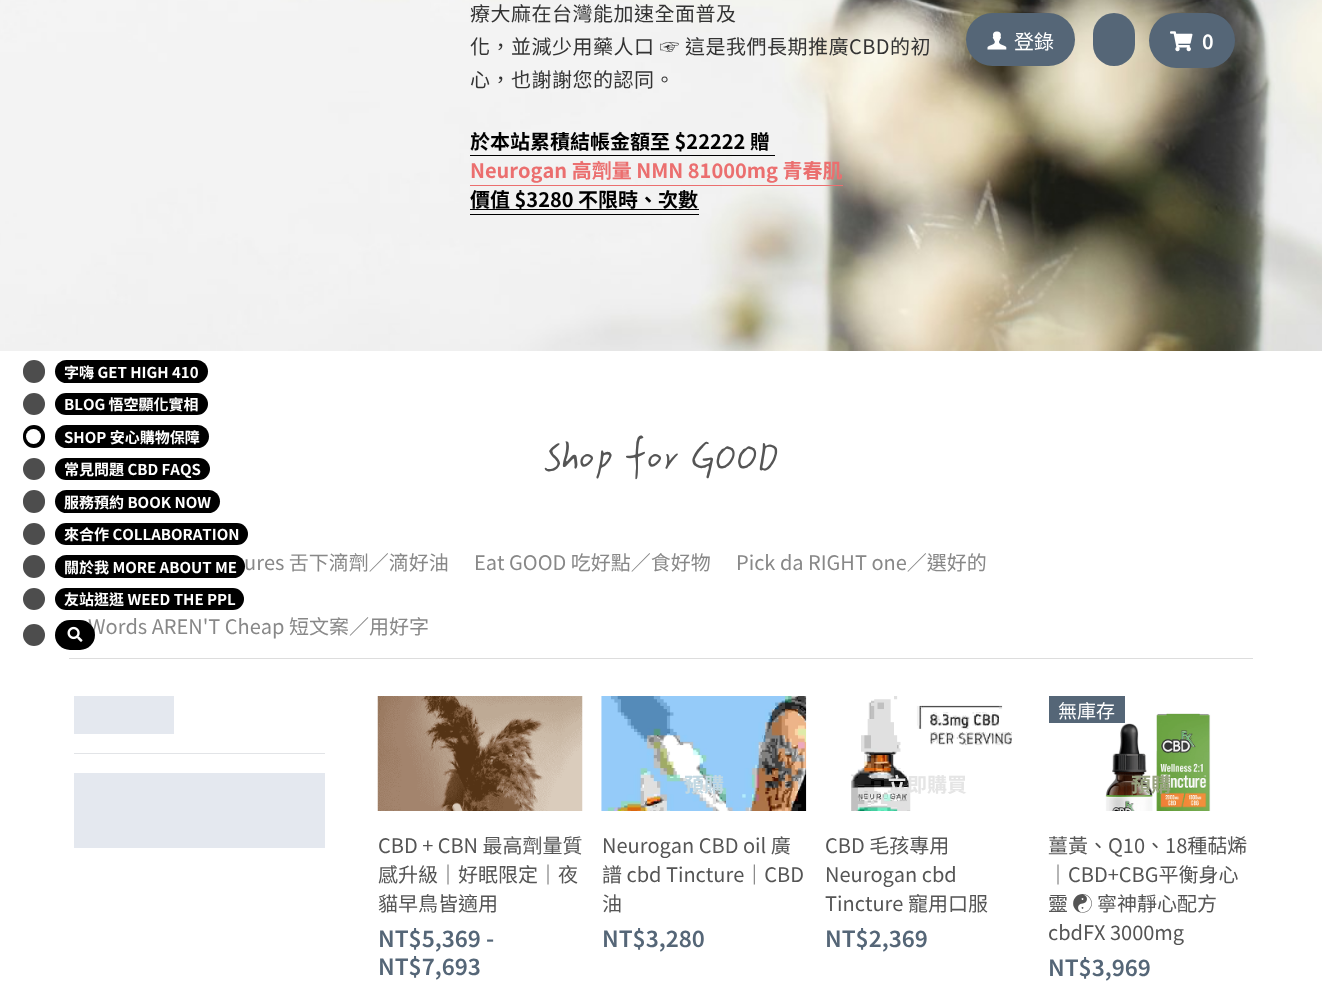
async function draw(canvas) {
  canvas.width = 1322
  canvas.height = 1003
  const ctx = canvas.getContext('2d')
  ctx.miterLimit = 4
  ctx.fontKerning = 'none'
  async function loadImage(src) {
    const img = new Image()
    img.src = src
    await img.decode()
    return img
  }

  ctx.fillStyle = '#fff'
  ctx.fillRect(0, 0, 1322, 1003)
  ctx.drawImage(await loadImage('image0.png'), 0, 0, 1322, 351)
  ctx.letterSpacing = '0.5px'
  ctx.font = '20px Noto Sans TC'
  ctx.fillStyle = '#333'
  ctx.fillText('療大麻在台灣能加速全面普及', 470, 21)
  ctx.fillText('化，並減少用藥人口 ☞ 這是我們長期推廣CBD的初', 470, 54)
  ctx.fillText('心，也謝謝您的認同。', 470, 87)
  ctx.letterSpacing = '0px'
  ctx.font = 'bold 20px Noto Sans TC'
  ctx.fillStyle = '#000'
  ctx.fillText('於本站累積結帳金額至 $22222 贈', 470, 149)
  ctx.fillRect(470, 155, 305, 1)
  ctx.fillStyle = '#eb6f6f'
  ctx.fillText('Neurogan 高劑量 NMN 81000mg 青春肌', 470, 178)
  ctx.fillRect(470, 185, 373, 1)
  ctx.fillStyle = '#000'
  ctx.fillRect(470, 209, 229, 1)
  ctx.fillText('價值 $3280 不限時、次數', 470, 207)
  ctx.fillRect(470, 214, 229, 1)
  ctx.font = '100 55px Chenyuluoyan'
  ctx.fillStyle = '#555'
  ctx.fillText('Shop for GOOD', 543, 475)
  ctx.fillStyle = '#ddd'
  ctx.fillRect(69, 658, 1184, 1)
  ctx.font = '20px Noto Sans TC'
  ctx.fillStyle = '#888'
  ctx.fillText('ures 舌下滴劑／滴好油', 244, 570)
  ctx.fillText('Eat GOOD 吃好點／食好物', 474, 570)
  ctx.fillText('Pick da RIGHT one／選好的', 736, 570)
  ctx.fillText('Words AREN\'T Cheap 短文案／用好字', 88, 634)
  ctx.fillStyle = '#e4e8ef'
  ctx.fillRect(74, 696, 100, 38)
  ctx.fillStyle = '#e2e4e7'
  ctx.fillRect(74, 753, 251, 1)
  ctx.fillStyle = '#e4e8ef'
  ctx.fillRect(74, 773, 251, 75)
  ctx.drawImage(await loadImage('image1.png'), 377, 696, 206, 115)
  ctx.fillStyle = '#555'
  ctx.fillText('CBD + CBN 最高劑量質', 378, 853)
  ctx.fillText('感升級｜好眠限定｜夜', 378, 882)
  ctx.fillText('貓早鳥皆適用', 378, 911)
  ctx.font = '600 22.5px Noto Sans TC'
  ctx.fillStyle = '#567'
  ctx.fillText('NT$5,369 -', 378, 947)
  ctx.fillText('NT$7,693', 378, 975)
  ctx.drawImage(await loadImage('image2.png'), 601, 696, 206, 115)
  ctx.font = 'bold 20px Noto Sans TC'
  ctx.fillStyle = '#c2d8e2'
  ctx.fillText('預購', 684, 792)
  ctx.font = '20px Noto Sans TC'
  ctx.fillStyle = '#555'
  ctx.fillText('Neurogan CBD oil 廣', 602, 853)
  ctx.fillText('譜 cbd Tincture｜CBD', 602, 882)
  ctx.fillText('油', 602, 911)
  ctx.font = '600 22.5px Noto Sans TC'
  ctx.fillStyle = '#567'
  ctx.fillText('NT$3,280', 602, 947)
  ctx.drawImage(await loadImage('image3.png'), 851, 696, 161, 115)
  ctx.font = 'bold 20px Noto Sans TC'
  ctx.fillStyle = '#e5e5e5'
  ctx.fillText('立即購買', 887, 792)
  ctx.font = '20px Noto Sans TC'
  ctx.fillStyle = '#555'
  ctx.fillText('CBD 毛孩專用', 825, 853)
  ctx.fillText('Neurogan cbd', 825, 882)
  ctx.fillText('Tincture 寵用口服', 825, 911)
  ctx.font = '600 22.5px Noto Sans TC'
  ctx.fillStyle = '#567'
  ctx.fillText('NT$2,369', 825, 947)
  ctx.drawImage(await loadImage('image4.png'), 1105, 713, 106, 98)
  ctx.fillRect(1049, 696, 76, 27)
  ctx.font = '19px Noto Sans TC'
  ctx.fillStyle = '#fff'
  ctx.fillText('無庫存', 1058, 718)
  ctx.font = 'bold 20px Noto Sans TC'
  ctx.fillStyle = '#99a381'
  ctx.fillText('預購', 1131, 792)
  ctx.font = '20px Noto Sans TC'
  ctx.fillStyle = '#555'
  ctx.fillText('薑黃、Q10、18種萜烯', 1048, 853)
  ctx.fillText('｜CBD+CBG平衡身心', 1048, 882)
  ctx.fillText('靈 ☯ 寧神靜心配方', 1048, 911)
  ctx.fillText('cbdFX 3000mg', 1048, 940)
  ctx.font = '600 22.5px Noto Sans TC'
  ctx.fillStyle = '#567'
  ctx.fillText('NT$3,969', 1048, 976)
  ctx.beginPath()
  ctx.roundRect(966, 13, 109, 53, 26.5)
  ctx.fill()
  ctx.drawImage(await loadImage('image5.png'), 987, 31, 20, 19)
  ctx.font = '20px Noto Sans TC'
  ctx.fillStyle = '#fff'
  ctx.fillText('登錄', 1014, 49)
  ctx.fillStyle = '#567'
  ctx.beginPath()
  ctx.roundRect(1093, 13, 42, 53, 21)
  ctx.fill()
  ctx.beginPath()
  ctx.roundRect(1149, 13, 86, 55, 27.5)
  ctx.fill()
  ctx.drawImage(await loadImage('image6.png'), 1170, 31, 23, 21)
  ctx.font = '600 20px Noto Sans TC'
  ctx.fillStyle = '#fff'
  ctx.fillText('0', 1202, 49)
  ctx.fillStyle = '#4d4d4d'
  ctx.beginPath()
  ctx.roundRect(23, 360, 22, 23, 11)
  ctx.fill()
  ctx.fillStyle = '#000'
  ctx.beginPath()
  ctx.roundRect(55, 360, 153, 23, 11.5)
  ctx.fill()
  ctx.font = 'bold 15px Noto Sans TC'
  ctx.fillStyle = '#fff'
  ctx.fillText('字嗨 GET HIGH 410', 64, 378)
  ctx.fillStyle = '#4d4d4d'
  ctx.beginPath()
  ctx.arc(34, 404, 11, 0, 2 * Math.PI)
  ctx.fill()
  ctx.fillStyle = '#000'
  ctx.beginPath()
  ctx.roundRect(55, 393, 153, 22, 11)
  ctx.fill()
  ctx.fillStyle = '#fff'
  ctx.fillText('BLOG 悟空顯化實相', 64, 410)
  ctx.fillStyle = '#000'
  ctx.beginPath()
  ctx.roundRect(23, 425, 22, 23, 11)
  ctx.fill()
  ctx.fillStyle = '#fff'
  ctx.beginPath()
  ctx.arc(33.5, 436.5, 7.5, 0, 2 * Math.PI)
  ctx.fill()
  ctx.fillStyle = '#000'
  ctx.beginPath()
  ctx.roundRect(55, 425, 154, 23, 11.5)
  ctx.fill()
  ctx.fillStyle = '#fff'
  ctx.fillText('SHOP 安心購物保障', 64, 443)
  ctx.fillStyle = '#4d4d4d'
  ctx.beginPath()
  ctx.arc(34, 469, 11, 0, 2 * Math.PI)
  ctx.fill()
  ctx.fillStyle = '#000'
  ctx.beginPath()
  ctx.roundRect(55, 458, 155, 22, 11)
  ctx.fill()
  ctx.fillStyle = '#fff'
  ctx.fillText('常見問題 CBD FAQS', 64, 475)
  ctx.fillStyle = '#4d4d4d'
  ctx.beginPath()
  ctx.roundRect(23, 490, 22, 23, 11)
  ctx.fill()
  ctx.fillStyle = '#000'
  ctx.beginPath()
  ctx.roundRect(55, 490, 165, 23, 11.5)
  ctx.fill()
  ctx.fillStyle = '#fff'
  ctx.fillText('服務預約 BOOK NOW', 64, 508)
  ctx.fillStyle = '#4d4d4d'
  ctx.beginPath()
  ctx.arc(34, 534, 11, 0, 2 * Math.PI)
  ctx.fill()
  ctx.fillStyle = '#000'
  ctx.beginPath()
  ctx.roundRect(55, 523, 193, 22, 11)
  ctx.fill()
  ctx.fillStyle = '#fff'
  ctx.fillText('來合作 COLLABORATION', 64, 540)
  ctx.fillStyle = '#4d4d4d'
  ctx.beginPath()
  ctx.roundRect(23, 555, 22, 23, 11)
  ctx.fill()
  ctx.fillStyle = '#000'
  ctx.beginPath()
  ctx.roundRect(55, 555, 190, 23, 11.5)
  ctx.fill()
  ctx.fillStyle = '#fff'
  ctx.fillText('關於我 MORE ABOUT ME', 64, 573)
  ctx.fillStyle = '#4d4d4d'
  ctx.beginPath()
  ctx.arc(34, 599, 11, 0, 2 * Math.PI)
  ctx.fill()
  ctx.fillStyle = '#000'
  ctx.beginPath()
  ctx.roundRect(55, 588, 189, 22, 11)
  ctx.fill()
  ctx.fillStyle = '#fff'
  ctx.fillText('友站逛逛 WEED THE PPL', 64, 605)
  ctx.fillStyle = '#4d4d4d'
  ctx.beginPath()
  ctx.arc(34, 635, 11, 0, 2 * Math.PI)
  ctx.fill()
  ctx.fillStyle = '#000'
  ctx.beginPath()
  ctx.roundRect(55, 620, 40, 30, 15)
  ctx.fill()
  ctx.drawImage(await loadImage('image7.png'), 67, 626, 16, 16)
}

draw(document.querySelector('canvas'))
